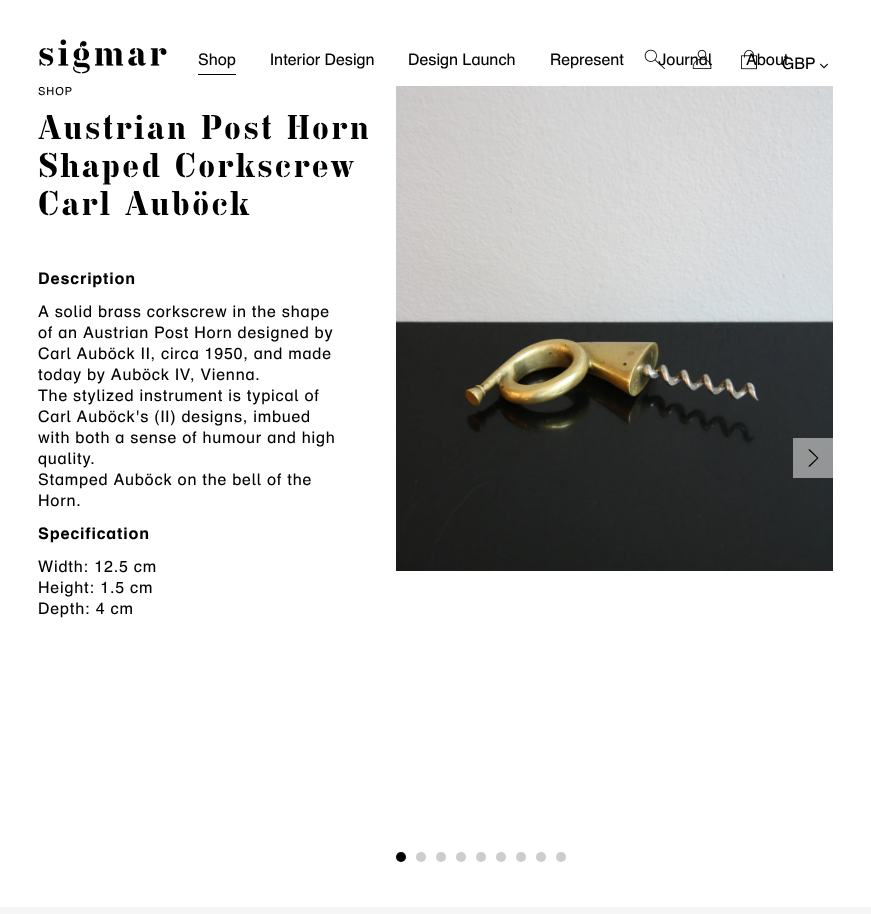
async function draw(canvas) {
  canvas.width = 871
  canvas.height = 914
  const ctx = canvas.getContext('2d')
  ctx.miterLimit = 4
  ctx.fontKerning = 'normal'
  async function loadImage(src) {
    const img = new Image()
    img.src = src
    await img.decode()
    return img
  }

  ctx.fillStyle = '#fff'
  ctx.fillRect(0, 0, 871, 914)
  ctx.drawImage(await loadImage('image0.png'), 39, 39, 128, 35)
  ctx.font = '16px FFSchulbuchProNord'
  ctx.fillStyle = '#000'
  ctx.fillText('Shop', 198, 65)
  ctx.fillRect(198, 74, 38, 1)
  ctx.fillText('Interior Design', 270, 65)
  ctx.fillText('Design Launch', 408, 65)
  ctx.fillText('Represent', 550, 65)
  ctx.fillText('Journal', 658, 65)
  ctx.fillText('About', 746, 65)
  ctx.drawImage(await loadImage('image1.png'), 644, 49, 21, 20)
  ctx.drawImage(await loadImage('image2.png'), 692, 49, 20, 20)
  ctx.drawImage(await loadImage('image3.png'), 741, 49, 16, 21)
  ctx.fillText('GBP', 782, 69)
  ctx.drawImage(await loadImage('image4.png'), 820, 63, 8, 6)
  ctx.letterSpacing = '1px'
  ctx.font = '11px FFSchulbuchProNord'
  ctx.fillText('SHOP', 38, 95)
  ctx.letterSpacing = '1.75px'
  ctx.font = '34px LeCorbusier'
  ctx.fillText('Austrian Post Horn', 38, 139)
  ctx.fillText('Shaped Corkscrew', 38, 177)
  ctx.fillText('Carl Auböck', 38, 215)
  ctx.letterSpacing = '0.8px'
  ctx.font = '16px "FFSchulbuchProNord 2"'
  ctx.fillText('Description', 38, 284)
  ctx.font = '16px FFSchulbuchProNord'
  ctx.fillText('A solid brass corkscrew in the shape', 38, 317)
  ctx.fillText('of an Austrian Post Horn designed by', 38, 338)
  ctx.fillText('Carl Auböck II, circa 1950, and made', 38, 359)
  ctx.fillText('today by Auböck IV, Vienna.', 38, 380)
  ctx.fillText('The stylized instrument is typical of', 38, 401)
  ctx.fillText('Carl Auböck\'s (II) designs, imbued', 38, 422)
  ctx.fillText('with both a sense of humour and high', 38, 443)
  ctx.fillText('quality.', 38, 464)
  ctx.fillText('Stamped Auböck on the bell of the', 38, 485)
  ctx.fillText('Horn.', 38, 506)
  ctx.font = '16px "FFSchulbuchProNord 2"'
  ctx.fillText('Specification', 38, 539)
  ctx.font = '16px FFSchulbuchProNord'
  ctx.fillText('Width: 12.5 cm', 38, 572)
  ctx.fillText('Height: 1.5 cm', 38, 593)
  ctx.fillText('Depth: 4 cm', 38, 614)
  ctx.drawImage(await loadImage('image5.png'), 396, 86, 437, 485)
  ctx.drawImage(await loadImage('image6.png'), 832, 303, 1, 19)
  ctx.fillStyle = '#ffffff80'
  ctx.fillRect(793, 438, 40, 40)
  ctx.fillStyle = '#000'
  ctx.beginPath()
  ctx.moveTo(810, 449.5)
  ctx.lineTo(808, 449.5)
  ctx.lineTo(817, 458)
  ctx.lineTo(808, 466.5)
  ctx.lineTo(810, 466.5)
  ctx.lineTo(818.5, 458)
  ctx.closePath()
  ctx.fill()
  ctx.beginPath()
  ctx.arc(401, 857, 5, 0, 2 * Math.PI)
  ctx.fill()
  ctx.fillStyle = '#ccc'
  ctx.beginPath()
  ctx.arc(421, 857, 5, 0, 2 * Math.PI)
  ctx.fill()
  ctx.beginPath()
  ctx.arc(441, 857, 5, 0, 2 * Math.PI)
  ctx.fill()
  ctx.beginPath()
  ctx.arc(461, 857, 5, 0, 2 * Math.PI)
  ctx.fill()
  ctx.beginPath()
  ctx.arc(481, 857, 5, 0, 2 * Math.PI)
  ctx.fill()
  ctx.beginPath()
  ctx.arc(501, 857, 5, 0, 2 * Math.PI)
  ctx.fill()
  ctx.beginPath()
  ctx.arc(521, 857, 5, 0, 2 * Math.PI)
  ctx.fill()
  ctx.beginPath()
  ctx.arc(541, 857, 5, 0, 2 * Math.PI)
  ctx.fill()
  ctx.beginPath()
  ctx.arc(561, 857, 5, 0, 2 * Math.PI)
  ctx.fill()
  ctx.fillStyle = '#f6f6f6'
  ctx.fillRect(0, 907, 871, 7)
}

draw(document.querySelector('canvas'))
